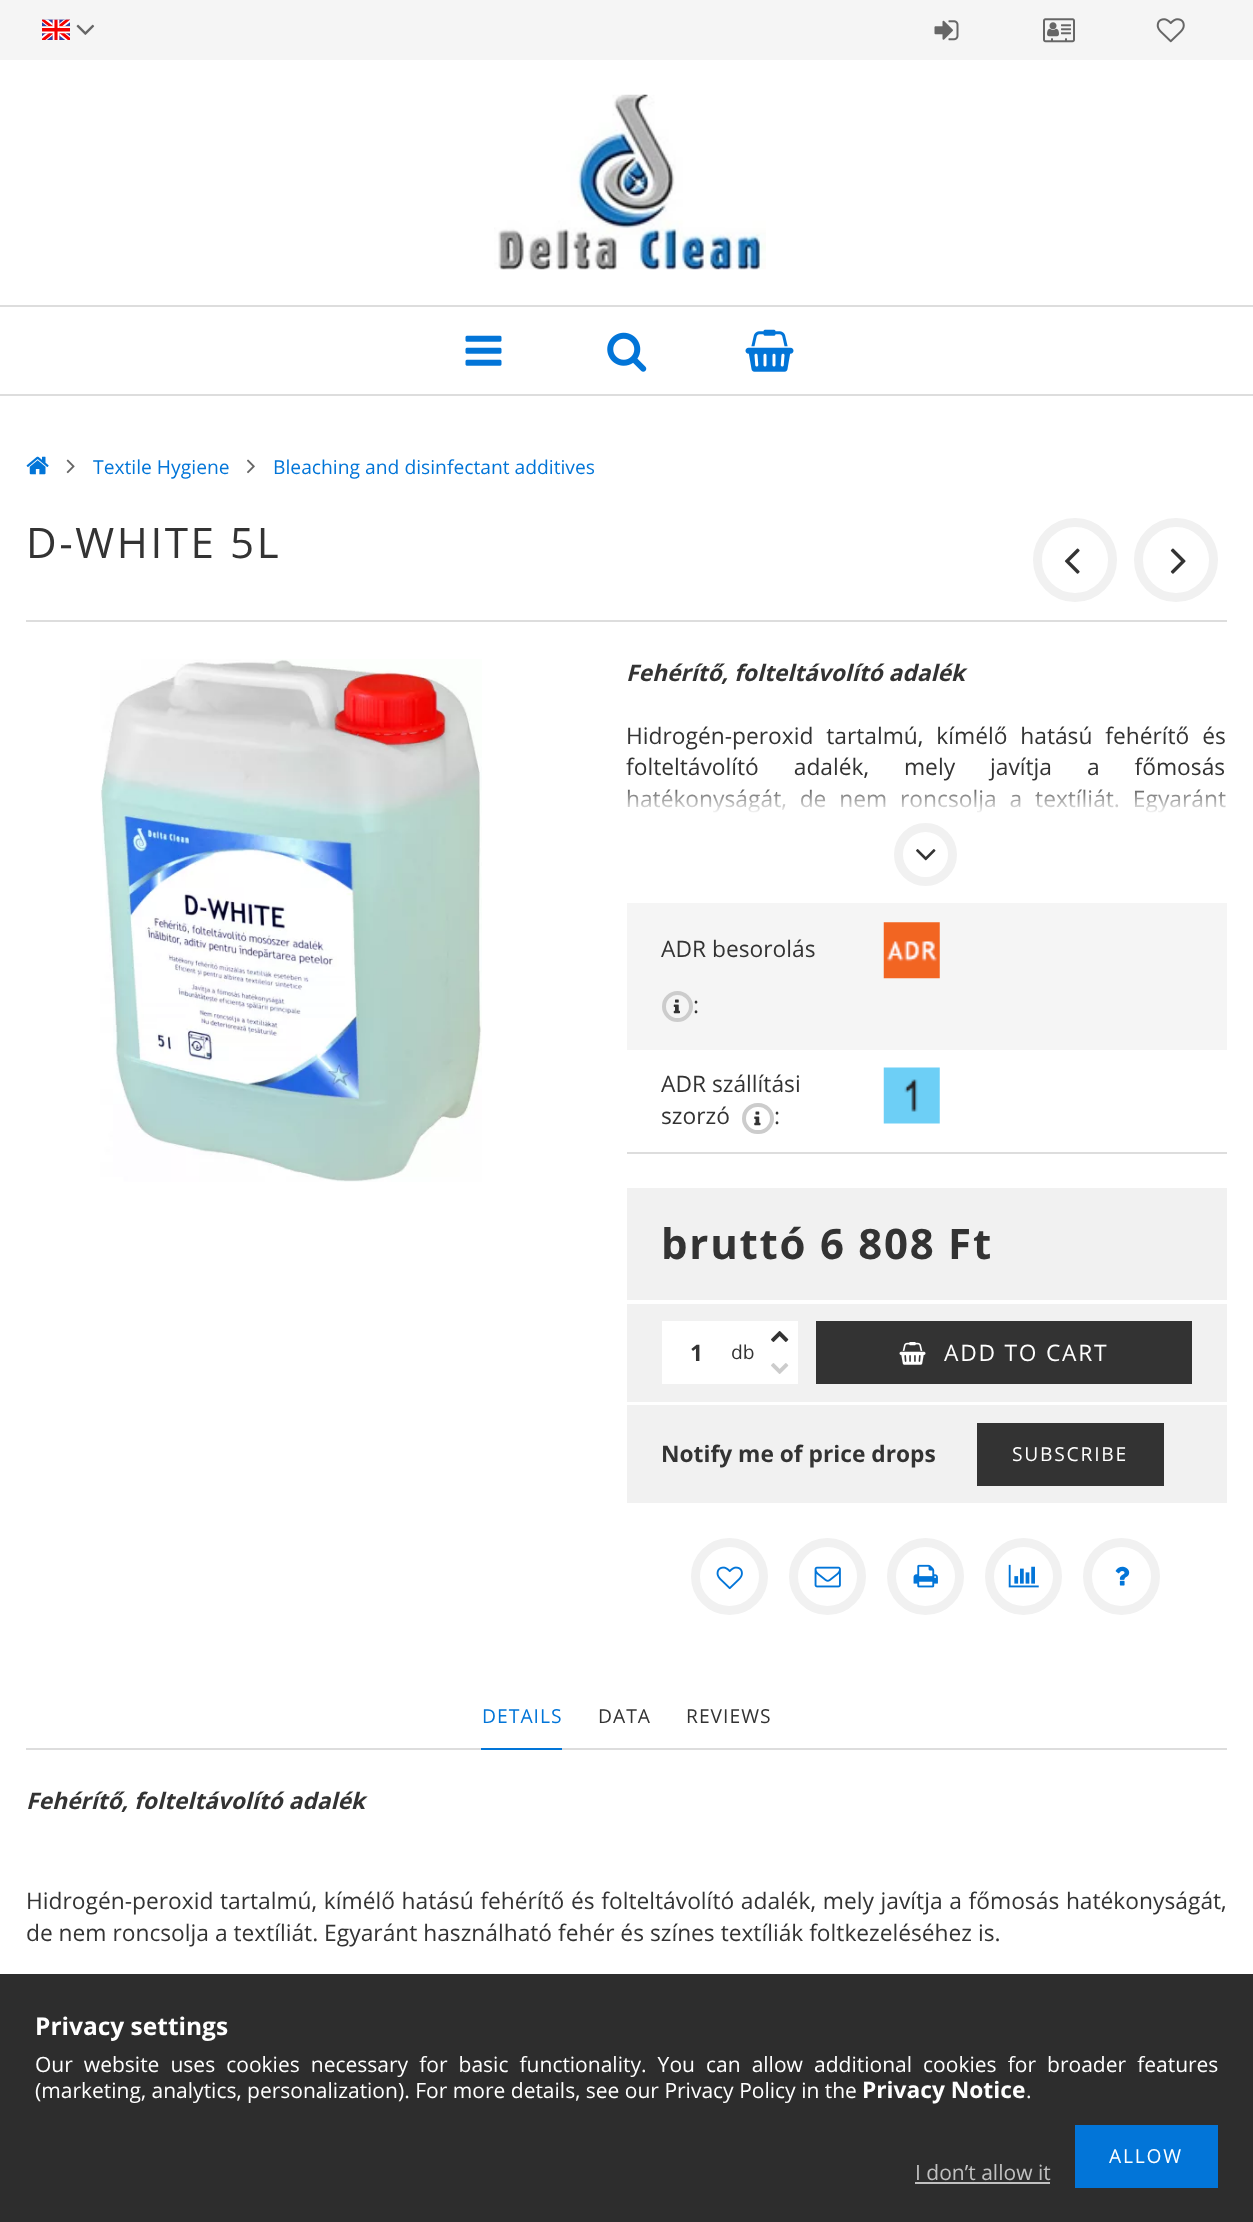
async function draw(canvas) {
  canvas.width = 1253
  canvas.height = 2222
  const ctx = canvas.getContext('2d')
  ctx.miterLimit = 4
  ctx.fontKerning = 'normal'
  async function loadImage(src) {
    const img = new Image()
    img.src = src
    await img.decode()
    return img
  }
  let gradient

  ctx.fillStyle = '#fff'
  ctx.fillRect(0, 0, 1253, 2222)
  ctx.fillStyle = '#2d2d2d'
  ctx.fillRect(0, 1974, 1253, 248)
  ctx.fillStyle = '#f5f5f5'
  ctx.fillRect(0, 0, 1253, 60)
  ctx.drawImage(await loadImage('image0.png'), 42, 19, 28, 21)
  ctx.drawImage(await loadImage('image1.png'), 76, 24, 19, 11)
  ctx.drawImage(await loadImage('image2.png'), 934, 20, 25, 21)
  ctx.drawImage(await loadImage('image3.png'), 1043, 18, 32, 25)
  ctx.drawImage(await loadImage('image4.png'), 1156, 18, 29, 25)
  ctx.drawImage(await loadImage('image5.png'), 494, 94, 272, 176)
  ctx.fillStyle = '#ddd'
  ctx.fillRect(0, 305, 1253, 2)
  ctx.fillRect(0, 394, 1253, 2)
  ctx.drawImage(await loadImage('image6.png'), 465, 335, 37, 31)
  ctx.drawImage(await loadImage('image7.png'), 607, 332, 40, 40)
  ctx.drawImage(await loadImage('image8.png'), 745, 329, 49, 43)
  ctx.drawImage(await loadImage('image9.png'), 26, 456, 23, 19)
  ctx.drawImage(await loadImage('image10.png'), 66, 459, 9, 15)
  ctx.font = '19.25px Open Sans'
  ctx.fillStyle = '#0275d8'
  ctx.fillText('Textile Hygiene', 93, 474)
  ctx.drawImage(await loadImage('image11.png'), 247, 459, 8, 15)
  ctx.fillText('Bleaching and disinfectant additives', 273, 474)
  ctx.fillStyle = '#ddd'
  ctx.fillRect(26, 620, 1201, 2)
  ctx.letterSpacing = '2.6px'
  ctx.font = '42px Open Sans'
  ctx.fillStyle = '#333'
  ctx.fillText('D-WHITE 5L', 26, 558)
  ctx.beginPath()
  ctx.arc(1075, 560, 37.5, 0, 2 * Math.PI)
  ctx.strokeStyle = '#f1f1f1'
  ctx.lineWidth = 9
  ctx.stroke()
  ctx.drawImage(await loadImage('image12.png'), 1064, 548, 16, 26)
  ctx.beginPath()
  ctx.arc(1176, 560, 37.5, 0, 2 * Math.PI)
  ctx.stroke()
  ctx.drawImage(await loadImage('image13.png'), 1170, 548, 16, 26)
  ctx.drawImage(await loadImage('image14.png'), 100, 659, 382, 523)
  ctx.letterSpacing = '0px'
  ctx.font = 'italic bold 22.75px Open Sans'
  ctx.fillText('Fehérítő, folteltávolító adalék', 626, 681)
  ctx.wordSpacing = '7px'
  ctx.font = '22.75px Open Sans'
  ctx.fillText('Hidrogén-peroxid tartalmú, kímélő hatású fehérítő és', 626, 744)
  ctx.wordSpacing = '29px'
  ctx.fillText('folteltávolító adalék, mely javítja a főmosás', 626, 775)
  ctx.wordSpacing = '7px'
  ctx.fillText('hatékonyságát, de nem roncsolja a textíliát. Egyaránt', 626, 807)
  gradient = ctx.createLinearGradient(927, 782, 927, 814)
  gradient.addColorStop(0, '#ffffff00')
  gradient.addColorStop(1, '#fff')
  ctx.fillStyle = gradient
  ctx.fillRect(628, 789, 599, 24)
  ctx.beginPath()
  ctx.arc(925.5, 854.5, 27, 0, 2 * Math.PI)
  ctx.stroke()
  ctx.drawImage(await loadImage('image15.png'), 916, 849, 20, 12)
  ctx.fillStyle = '#ddd'
  ctx.fillRect(627, 1152, 600, 2)
  ctx.fillStyle = '#f5f5f5'
  ctx.fillRect(627, 903, 600, 147)
  ctx.wordSpacing = '0px'
  ctx.fillStyle = '#333'
  ctx.fillText('ADR besorolás', 661, 957)
  ctx.beginPath()
  ctx.arc(677.5, 1006.5, 13.5, 0, 2 * Math.PI)
  ctx.strokeStyle = '#ccc'
  ctx.lineWidth = 4
  ctx.stroke()
  ctx.drawImage(await loadImage('image16.png'), 673, 999, 7, 15)
  ctx.fillText(':', 693, 1013)
  ctx.drawImage(await loadImage('image17.png'), 883, 922, 57, 57)
  ctx.fillText('ADR szállítási', 661, 1092)
  ctx.fillText('szorzó', 661, 1124)
  ctx.beginPath()
  ctx.roundRect(744, 1105, 28, 27, 13.5)
  ctx.stroke()
  ctx.drawImage(await loadImage('image18.png'), 754, 1111, 7, 15)
  ctx.fillText(':', 774, 1124)
  ctx.drawImage(await loadImage('image19.png'), 883, 1067, 57, 57)
  ctx.fillStyle = '#f1f1f1'
  ctx.fillRect(627, 1188, 600, 112)
  ctx.letterSpacing = '1.75px'
  ctx.font = 'bold 42px Open Sans'
  ctx.fillStyle = '#333'
  ctx.fillText('bruttó 6 808 Ft', 661, 1259)
  ctx.fillStyle = '#f1f1f1'
  ctx.fillRect(627, 1304, 600, 98)
  ctx.fillStyle = '#fff'
  ctx.fillRect(662, 1321, 101, 63)
  ctx.letterSpacing = '0px'
  ctx.font = 'bold 22.75px Open Sans'
  ctx.fillStyle = '#333'
  ctx.fillText('1', 690, 1361)
  ctx.font = '19.25px Open Sans'
  ctx.fillText('db', 731, 1359)
  ctx.fillStyle = '#fff'
  ctx.fillRect(763, 1321, 35, 63)
  ctx.drawImage(await loadImage('image20.png'), 771, 1331, 18, 11)
  ctx.drawImage(await loadImage('image21.png'), 771, 1363, 18, 11)
  ctx.fillStyle = '#333'
  ctx.fillRect(816, 1321, 376, 63)
  ctx.drawImage(await loadImage('image22.png'), 899, 1342, 27, 23)
  ctx.letterSpacing = '1.75px'
  ctx.font = '22.75px Open Sans'
  ctx.fillStyle = '#fff'
  ctx.fillText('ADD TO CART', 944, 1361)
  ctx.fillStyle = '#f1f1f1'
  ctx.fillRect(627, 1405, 600, 98)
  ctx.letterSpacing = '0px'
  ctx.font = 'bold 22.75px Open Sans'
  ctx.fillStyle = '#333'
  ctx.fillText('Notify me of price drops', 661, 1462)
  ctx.fillRect(977, 1423, 187, 63)
  ctx.letterSpacing = '1.75px'
  ctx.font = '19.25px Open Sans'
  ctx.fillStyle = '#fff'
  ctx.fillText('SUBSCRIBE', 1012, 1461)
  ctx.beginPath()
  ctx.arc(729.5, 1576.5, 34, 0, 2 * Math.PI)
  ctx.strokeStyle = '#f1f1f1'
  ctx.lineWidth = 9
  ctx.stroke()
  ctx.drawImage(await loadImage('image23.png'), 716, 1566, 27, 24)
  ctx.beginPath()
  ctx.arc(827.5, 1576.5, 34, 0, 2 * Math.PI)
  ctx.stroke()
  ctx.drawImage(await loadImage('image24.png'), 814, 1566, 27, 22)
  ctx.beginPath()
  ctx.arc(925.5, 1576.5, 34, 0, 2 * Math.PI)
  ctx.stroke()
  ctx.drawImage(await loadImage('image25.png'), 913, 1564, 25, 24)
  ctx.beginPath()
  ctx.arc(1023.5, 1576.5, 34, 0, 2 * Math.PI)
  ctx.stroke()
  ctx.drawImage(await loadImage('image26.png'), 1008, 1564, 31, 24)
  ctx.beginPath()
  ctx.arc(1121.5, 1576.5, 34, 0, 2 * Math.PI)
  ctx.stroke()
  ctx.drawImage(await loadImage('image27.png'), 1115, 1566, 15, 20)
  ctx.fillStyle = '#ddd'
  ctx.fillRect(26, 1748, 1201, 2)
  ctx.fillStyle = '#0275d8'
  ctx.fillRect(481, 1748, 81, 2)
  ctx.letterSpacing = '1px'
  ctx.fillText('DETAILS', 482, 1723)
  ctx.fillStyle = '#333'
  ctx.fillText('DATA', 598, 1723)
  ctx.fillText('REVIEWS', 686, 1723)
  ctx.letterSpacing = '0px'
  ctx.font = 'italic bold 22.75px Open Sans'
  ctx.fillText('Fehérítő, folteltávolító adalék', 26, 1809)
  ctx.wordSpacing = '0.75px'
  ctx.font = '22.75px Open Sans'
  ctx.fillText('Hidrogén-peroxid tartalmú, kímélő hatású fehérítő és folteltávolító adalék, mely javítja a főmosás hatékonyságát,', 26, 1909)
  ctx.wordSpacing = '0px'
  ctx.fillText('de nem roncsolja a textíliát. Egyaránt használható fehér és színes textíliák foltkezeléséhez is.', 26, 1941)
  ctx.font = 'bold 24.5px Open Sans'
  ctx.fillStyle = '#fff'
  ctx.fillText('Privacy settings', 35, 2035)
  ctx.wordSpacing = '5.6px'
  ctx.font = '21px Open Sans'
  ctx.fillText('Our website uses cookies necessary for basic functionality. You can allow additional cookies for broader features', 35, 2072)
  ctx.wordSpacing = '0px'
  ctx.fillText('(marketing, analytics, personalization). For more details, see our Privacy Policy in the', 35, 2098)
  ctx.font = 'bold 22.75px Open Sans'
  ctx.fillText('Privacy Notice', 862, 2098)
  ctx.font = '21px Open Sans'
  ctx.fillText('.', 1026, 2098)
  ctx.fillStyle = '#0275d8'
  ctx.fillRect(1075, 2125, 143, 63)
  ctx.letterSpacing = '1.75px'
  ctx.font = '19.25px Open Sans'
  ctx.fillStyle = '#fff'
  ctx.fillText('ALLOW', 1109, 2163)
  ctx.letterSpacing = '0px'
  ctx.font = '21px Open Sans'
  ctx.fillStyle = '#c0c0c0'
  ctx.fillText('I don’t allow it', 915, 2180)
  ctx.fillRect(915, 2182, 135, 2)
}

draw(document.querySelector('canvas'))
